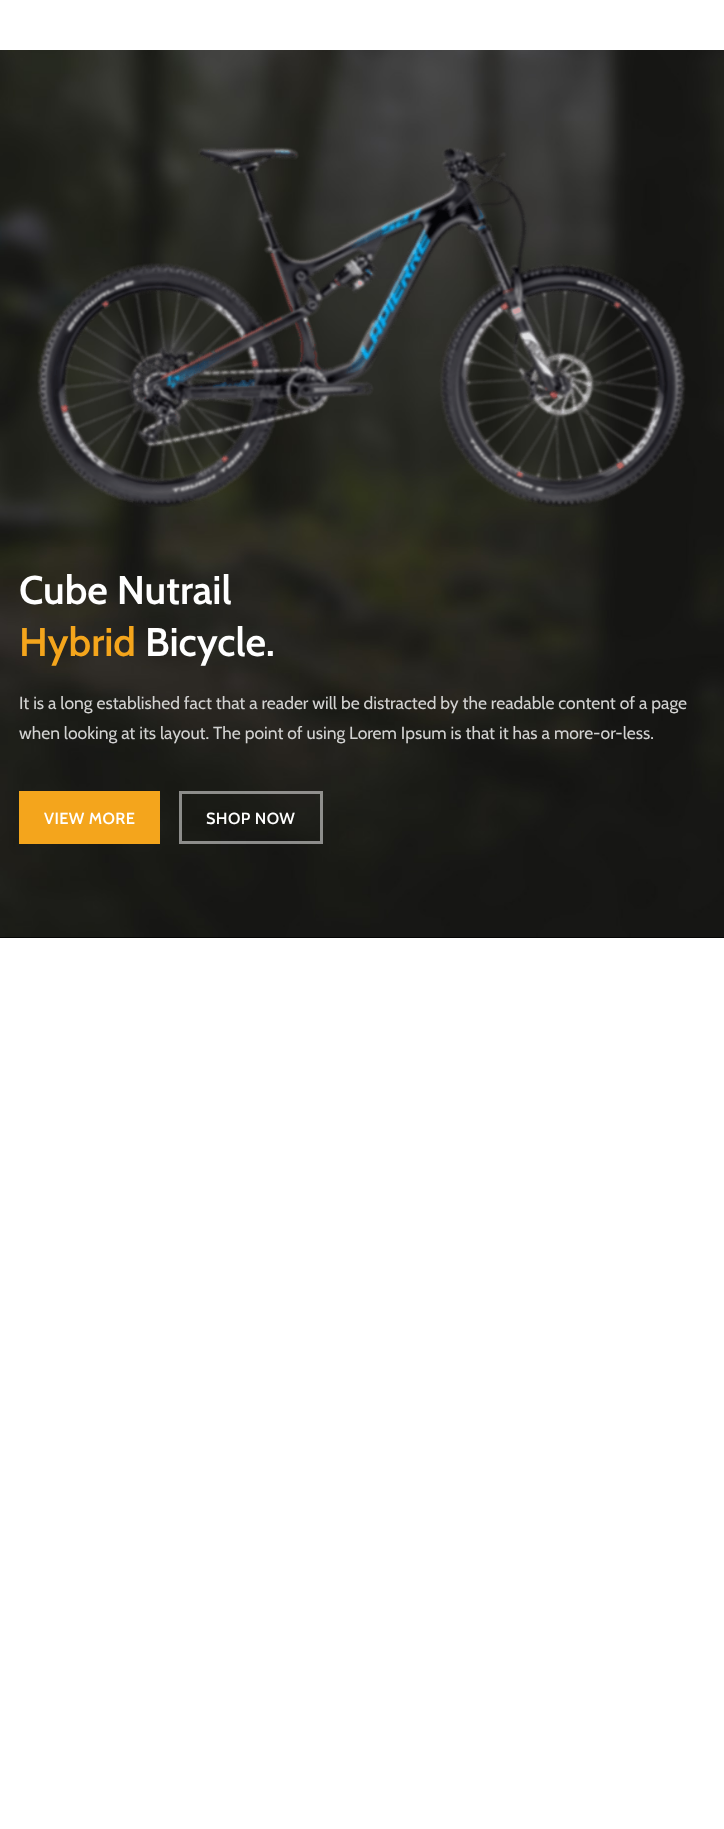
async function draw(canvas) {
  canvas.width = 724
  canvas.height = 1829
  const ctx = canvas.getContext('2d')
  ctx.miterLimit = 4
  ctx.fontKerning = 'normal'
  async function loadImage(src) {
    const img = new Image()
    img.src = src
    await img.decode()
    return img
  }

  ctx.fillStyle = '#fff'
  ctx.fillRect(0, 0, 724, 1829)
  ctx.fillStyle = '#000'
  ctx.fillRect(0, 937, 724, 1)
  ctx.drawImage(await loadImage('image0.png'), 0, 50, 724, 888)
  ctx.drawImage(await loadImage('image1.png'), 37, 147, 649, 360)
  ctx.font = '600 40px Cabin'
  ctx.fillStyle = '#fff'
  ctx.fillText('Cube Nutrail', 19, 604)
  ctx.fillStyle = '#f4a51c'
  ctx.fillText('Hybrid', 19, 656)
  ctx.fillStyle = '#fff'
  ctx.fillText('Bicycle.', 145, 656)
  ctx.font = '17.5px Cabin'
  ctx.fillStyle = '#d2d2d1'
  ctx.fillText('It is a long established fact that a reader will be distracted by the readable content of a page', 19, 709)
  ctx.fillText('when looking at its layout. The point of using Lorem Ipsum is that it has a more-or-less.', 19, 739)
  ctx.fillStyle = '#f4a51c'
  ctx.fillRect(19, 791, 141, 53)
  ctx.letterSpacing = '0.4px'
  ctx.font = '600 16.25px Cabin'
  ctx.fillStyle = '#fff'
  ctx.fillText('VIEW MORE', 44, 824)
  ctx.strokeStyle = '#ffffff80'
  ctx.lineWidth = 3
  ctx.strokeRect(180.5, 792.5, 141, 50)
  ctx.fillText('SHOP NOW', 206, 824)
}

draw(document.querySelector('canvas'))
